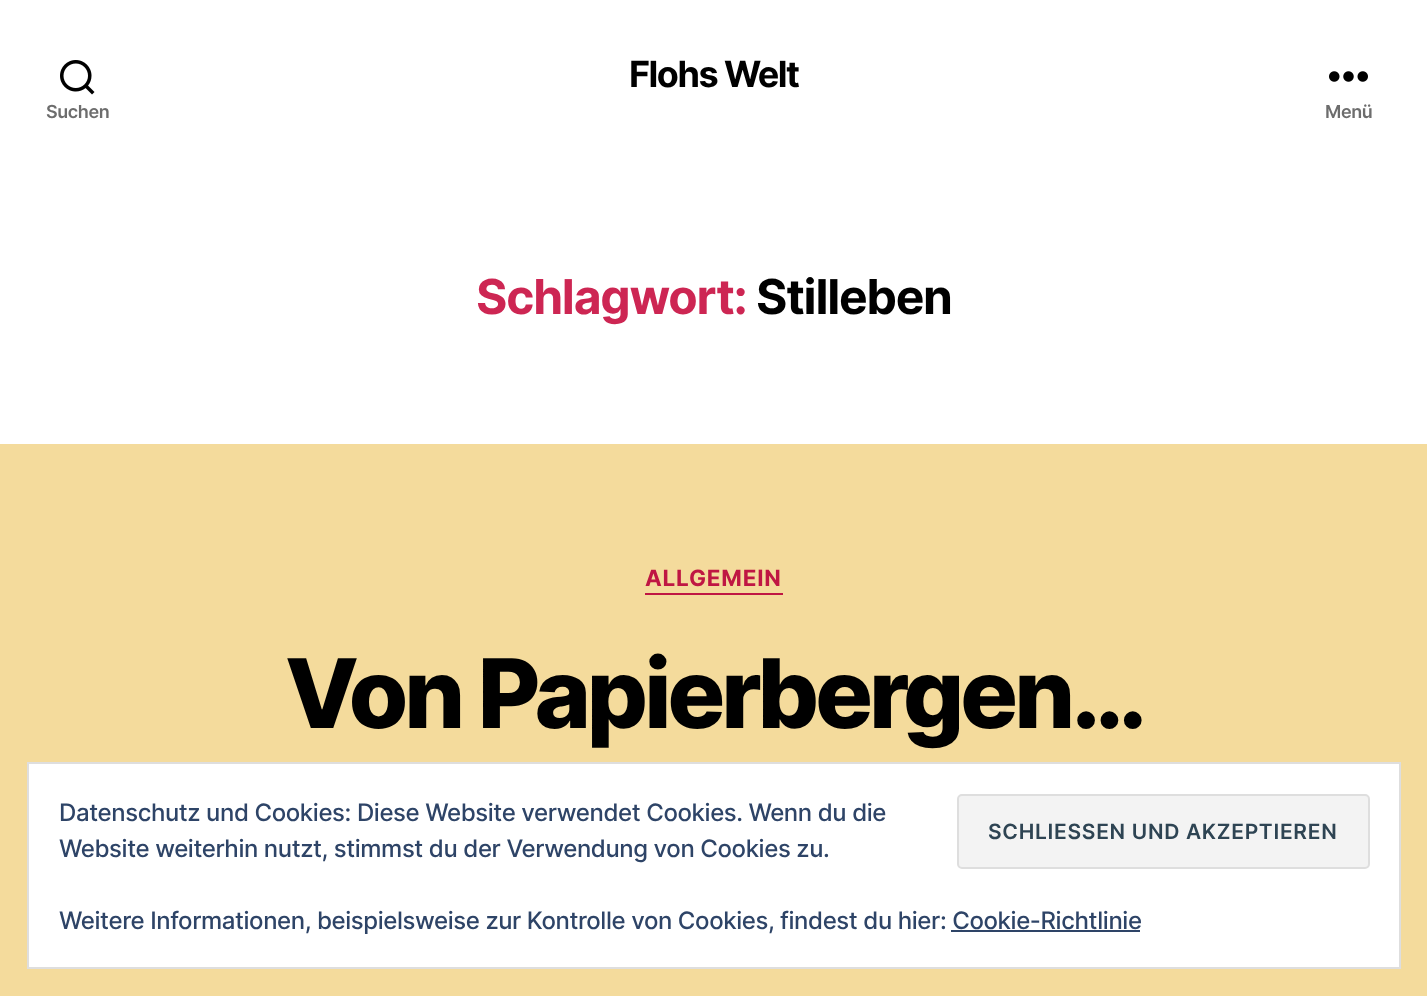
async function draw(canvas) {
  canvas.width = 1427
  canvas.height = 996
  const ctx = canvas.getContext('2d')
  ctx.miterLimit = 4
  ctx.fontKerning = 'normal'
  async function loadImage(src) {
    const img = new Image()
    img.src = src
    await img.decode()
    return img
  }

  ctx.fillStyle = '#f4db9c'
  ctx.fillRect(0, 0, 1427, 996)
  ctx.fillStyle = '#fff'
  ctx.fillRect(0, 0, 1427, 444)
  ctx.letterSpacing = '-1.5px'
  ctx.font = 'bold 36px Inter'
  ctx.fillStyle = '#000'
  ctx.fillText('Flohs Welt', 629, 87)
  ctx.drawImage(await loadImage('image0.png'), 60, 60, 35, 35)
  ctx.letterSpacing = '-0.4px'
  ctx.font = '600 18px Inter'
  ctx.fillStyle = '#6d6d6d'
  ctx.fillText('Suchen', 46, 118)
  ctx.drawImage(await loadImage('image1.png'), 1329, 71, 39, 11)
  ctx.fillText('Menü', 1325, 118)
  ctx.letterSpacing = '-1.25px'
  ctx.font = 'bold 48px Inter'
  ctx.fillStyle = '#cd2653'
  ctx.fillText('Schlagwort:', 476, 314)
  ctx.fillStyle = '#000'
  ctx.fillText('Stilleben', 756, 314)
  ctx.fillStyle = '#bf1643'
  ctx.fillRect(645, 593, 138, 2)
  ctx.letterSpacing = '0.75px'
  ctx.font = 'bold 22.5px Inter'
  ctx.fillText('ALLGEMEIN', 645, 586)
  ctx.letterSpacing = '-4px'
  ctx.font = '800 96px Inter'
  ctx.fillStyle = '#000'
  ctx.fillText('Von Papierbergen…', 285, 728)
  ctx.fillStyle = '#fff'
  ctx.beginPath()
  ctx.rect(28, 763, 1372, 205)
  ctx.fill()
  ctx.strokeStyle = '#dedede'
  ctx.lineWidth = 2
  ctx.stroke()
  ctx.letterSpacing = '-0.4px'
  ctx.font = '500 24px Inter'
  ctx.fillStyle = '#2e4467'
  ctx.fillText('Datenschutz und Cookies: Diese Website verwendet Cookies. Wenn du die', 59, 821)
  ctx.fillStyle = '#f3f3f3'
  ctx.beginPath()
  ctx.roundRect(958, 795, 411, 73, 4)
  ctx.fill()
  ctx.stroke()
  ctx.letterSpacing = '0.7px'
  ctx.font = '600 21px Inter'
  ctx.fillStyle = '#2e4453'
  ctx.fillText('SCHLIESSEN UND AKZEPTIEREN', 988, 839)
  ctx.letterSpacing = '-0.4px'
  ctx.font = '500 24px Inter'
  ctx.fillStyle = '#2e4467'
  ctx.fillText('Website weiterhin nutzt, stimmst du der Verwendung von Cookies zu.', 59, 857)
  ctx.fillText('Weitere Informationen, beispielsweise zur Kontrolle von Cookies, findest du hier: Cookie-Richtlinie', 59, 929)
  ctx.fillRect(951, 930, 189, 2)
}

draw(document.querySelector('canvas'))
